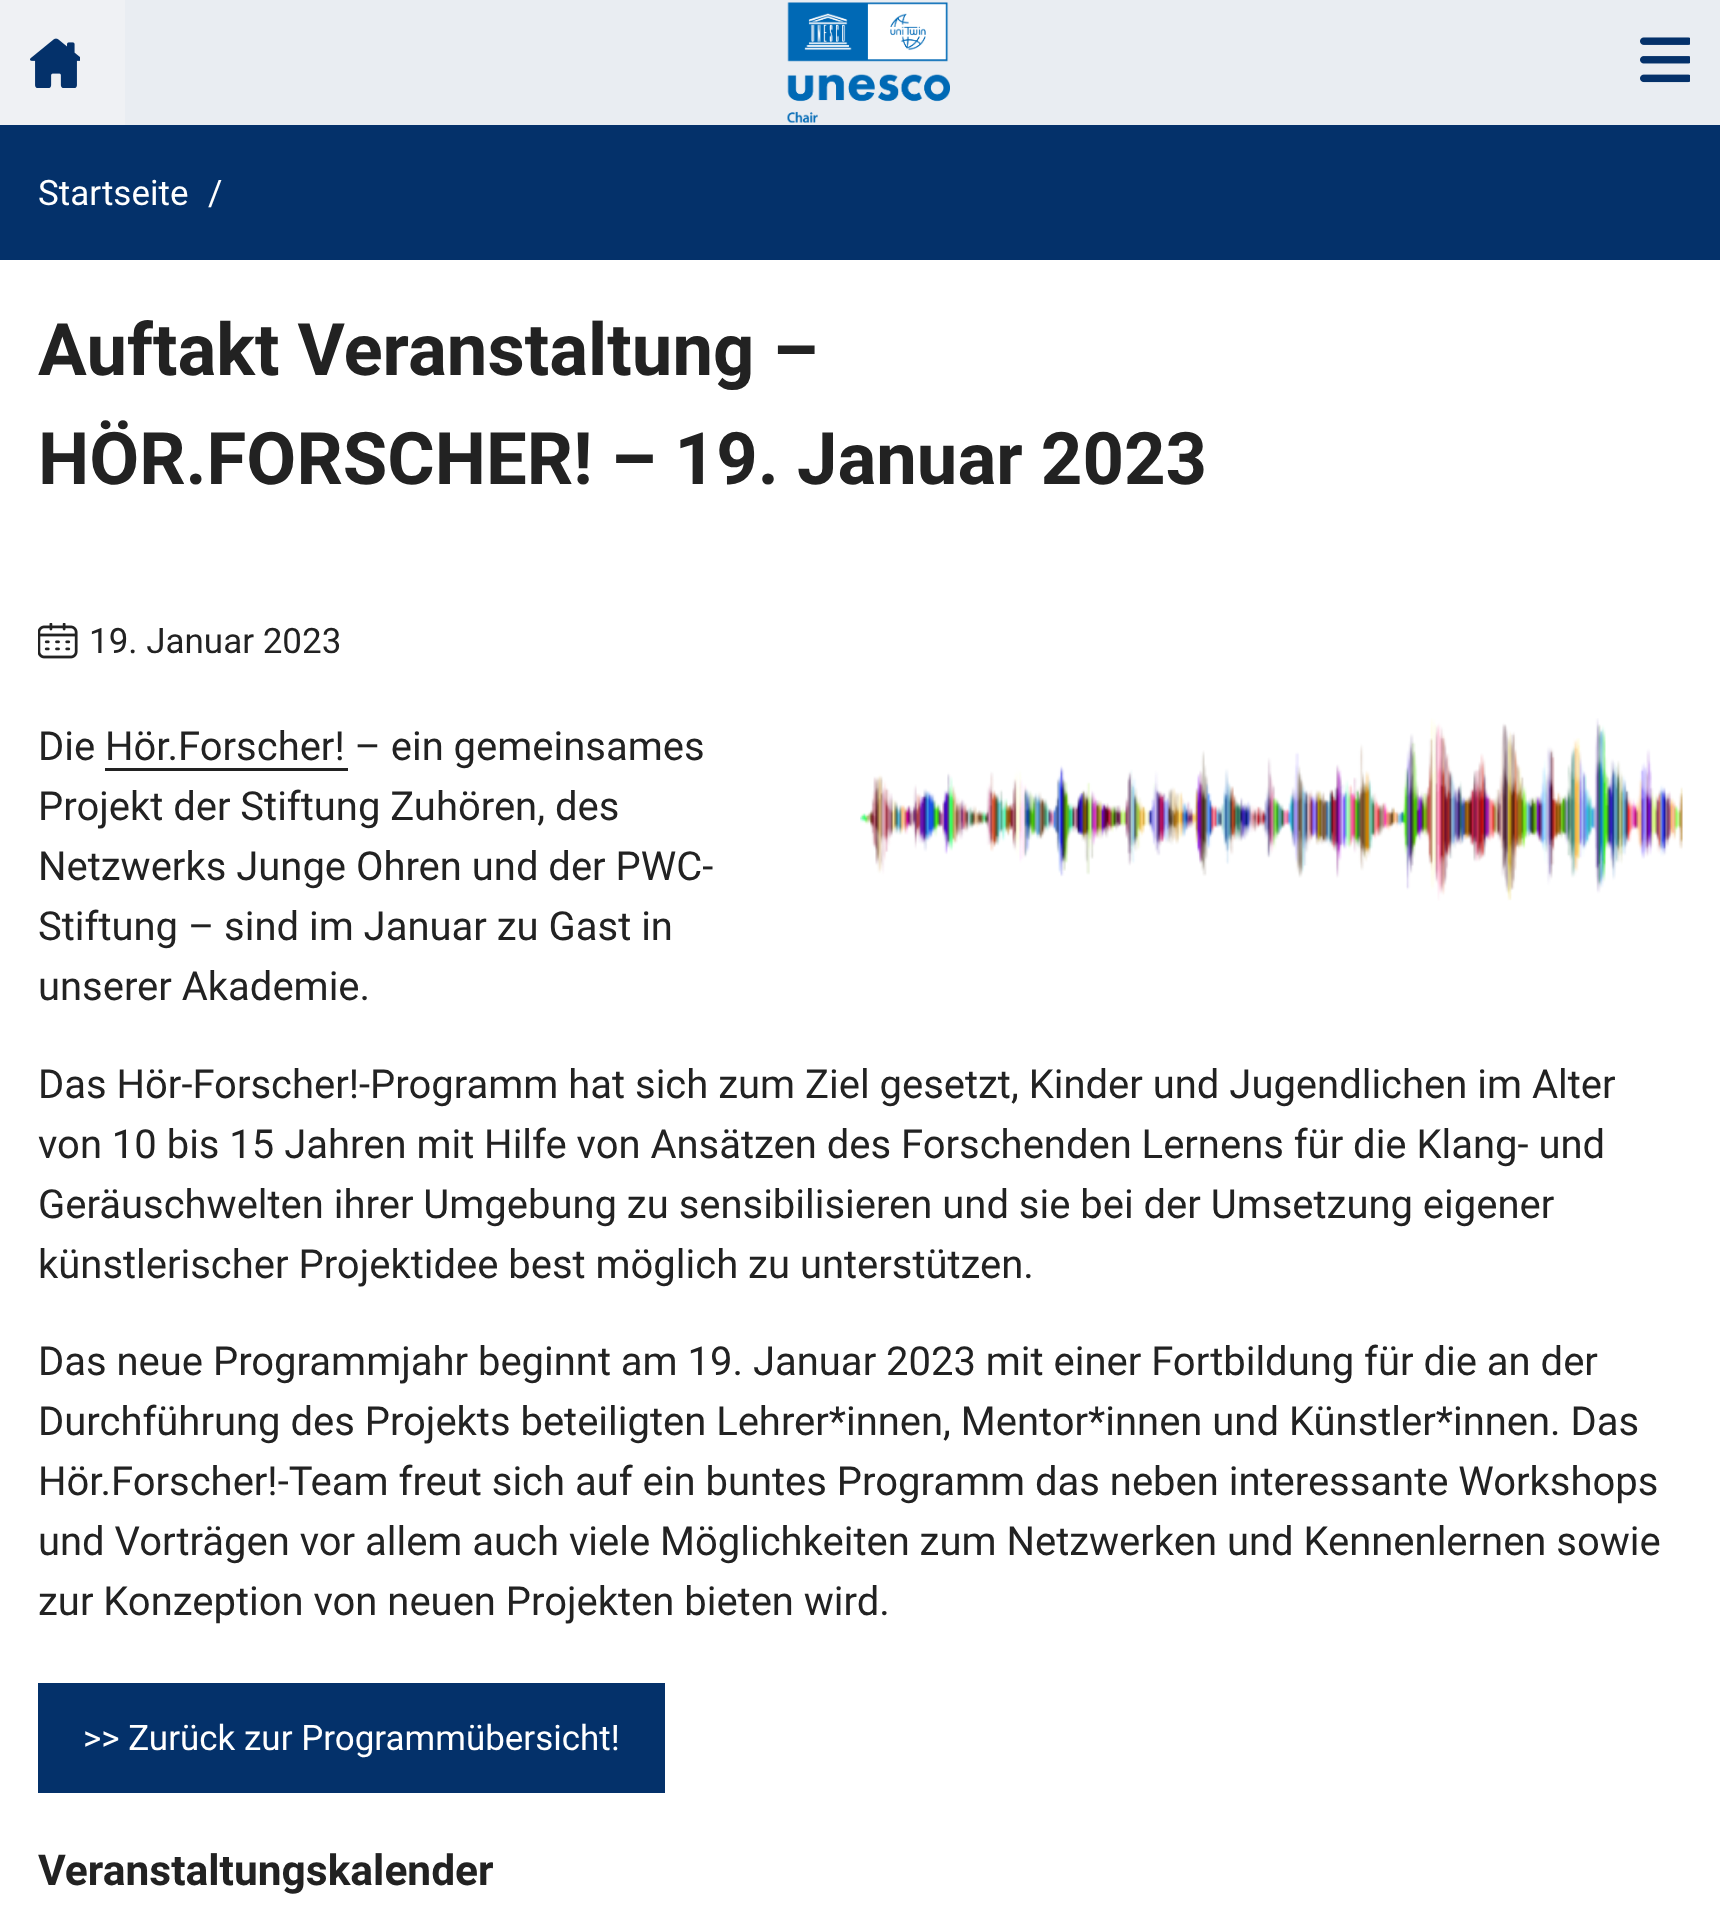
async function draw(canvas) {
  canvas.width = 1720
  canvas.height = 1920
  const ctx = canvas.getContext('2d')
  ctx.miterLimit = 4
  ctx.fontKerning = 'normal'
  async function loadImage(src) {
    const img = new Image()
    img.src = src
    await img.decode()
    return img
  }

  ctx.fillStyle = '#fff'
  ctx.fillRect(0, 0, 1720, 1920)
  ctx.fillStyle = '#e9edf2'
  ctx.fillRect(125, 0, 1595, 125)
  ctx.fillStyle = '#eff1f4'
  ctx.fillRect(0, 0, 125, 125)
  ctx.drawImage(await loadImage('image0.png'), 30, 38, 50, 50)
  ctx.drawImage(await loadImage('image1.png'), 787, 2, 163, 121)
  ctx.drawImage(await loadImage('image2.png'), 1640, 37, 50, 46)
  ctx.fillStyle = '#04316a'
  ctx.fillRect(0, 125, 1720, 135)
  ctx.font = '35px Roboto'
  ctx.fillStyle = '#fff'
  ctx.fillText('Startseite', 38, 205)
  ctx.fillText('/', 208, 205)
  ctx.font = 'bold 72.5px Roboto'
  ctx.fillStyle = '#222'
  ctx.fillText('Auftakt Veranstaltung –', 38, 375)
  ctx.fillText('HÖR.FORSCHER! – 19. Januar 2023', 38, 484)
  ctx.drawImage(await loadImage('image3.png'), 38, 623, 40, 36)
  ctx.font = '35px Roboto'
  ctx.fillText('19. Januar 2023', 89, 653)
  ctx.font = '40px Roboto'
  ctx.fillText('Die Hör.Forscher! – ein gemeinsames', 38, 760)
  ctx.fillRect(105, 768, 243, 3)
  ctx.fillText('Projekt der Stiftung Zuhören, des', 38, 820)
  ctx.fillText('Netzwerks Junge Ohren und der PWC-', 38, 880)
  ctx.fillText('Stiftung – sind im Januar zu Gast in', 38, 940)
  ctx.fillText('unserer Akademie.', 38, 1000)
  ctx.drawImage(await loadImage('image4.png'), 860, 718, 823, 183)
  ctx.fillText('Das Hör-Forscher!-Programm hat sich zum Ziel gesetzt, Kinder und Jugendlichen im Alter', 38, 1098)
  ctx.fillText('von 10 bis 15 Jahren mit Hilfe von Ansätzen des Forschenden Lernens für die Klang- und', 38, 1158)
  ctx.fillText('Geräuschwelten ihrer Umgebung zu sensibilisieren und sie bei der Umsetzung eigener', 38, 1218)
  ctx.fillText('künstlerischer Projektidee best möglich zu unterstützen.', 38, 1278)
  ctx.fillText('Das neue Programmjahr beginnt am 19. Januar 2023 mit einer Fortbildung für die an der', 38, 1375)
  ctx.fillText('Durchführung des Projekts beteiligten Lehrer*innen, Mentor*innen und Künstler*innen. Das', 38, 1435)
  ctx.fillText('Hör.Forscher!-Team freut sich auf ein buntes Programm das neben interessante Workshops', 38, 1495)
  ctx.fillText('und Vorträgen vor allem auch viele Möglichkeiten zum Netzwerken und Kennenlernen sowie', 38, 1555)
  ctx.fillText('zur Konzeption von neuen Projekten bieten wird.', 38, 1615)
  ctx.fillStyle = '#04316a'
  ctx.fillRect(38, 1683, 627, 110)
  ctx.font = '35px Roboto'
  ctx.fillStyle = '#fff'
  ctx.fillText('>> Zurück zur Programmübersicht!', 83, 1750)
  ctx.font = 'bold 42.5px Roboto'
  ctx.fillStyle = '#222'
  ctx.fillText('Veranstaltungskalender', 38, 1885)
}

draw(document.querySelector('canvas'))
